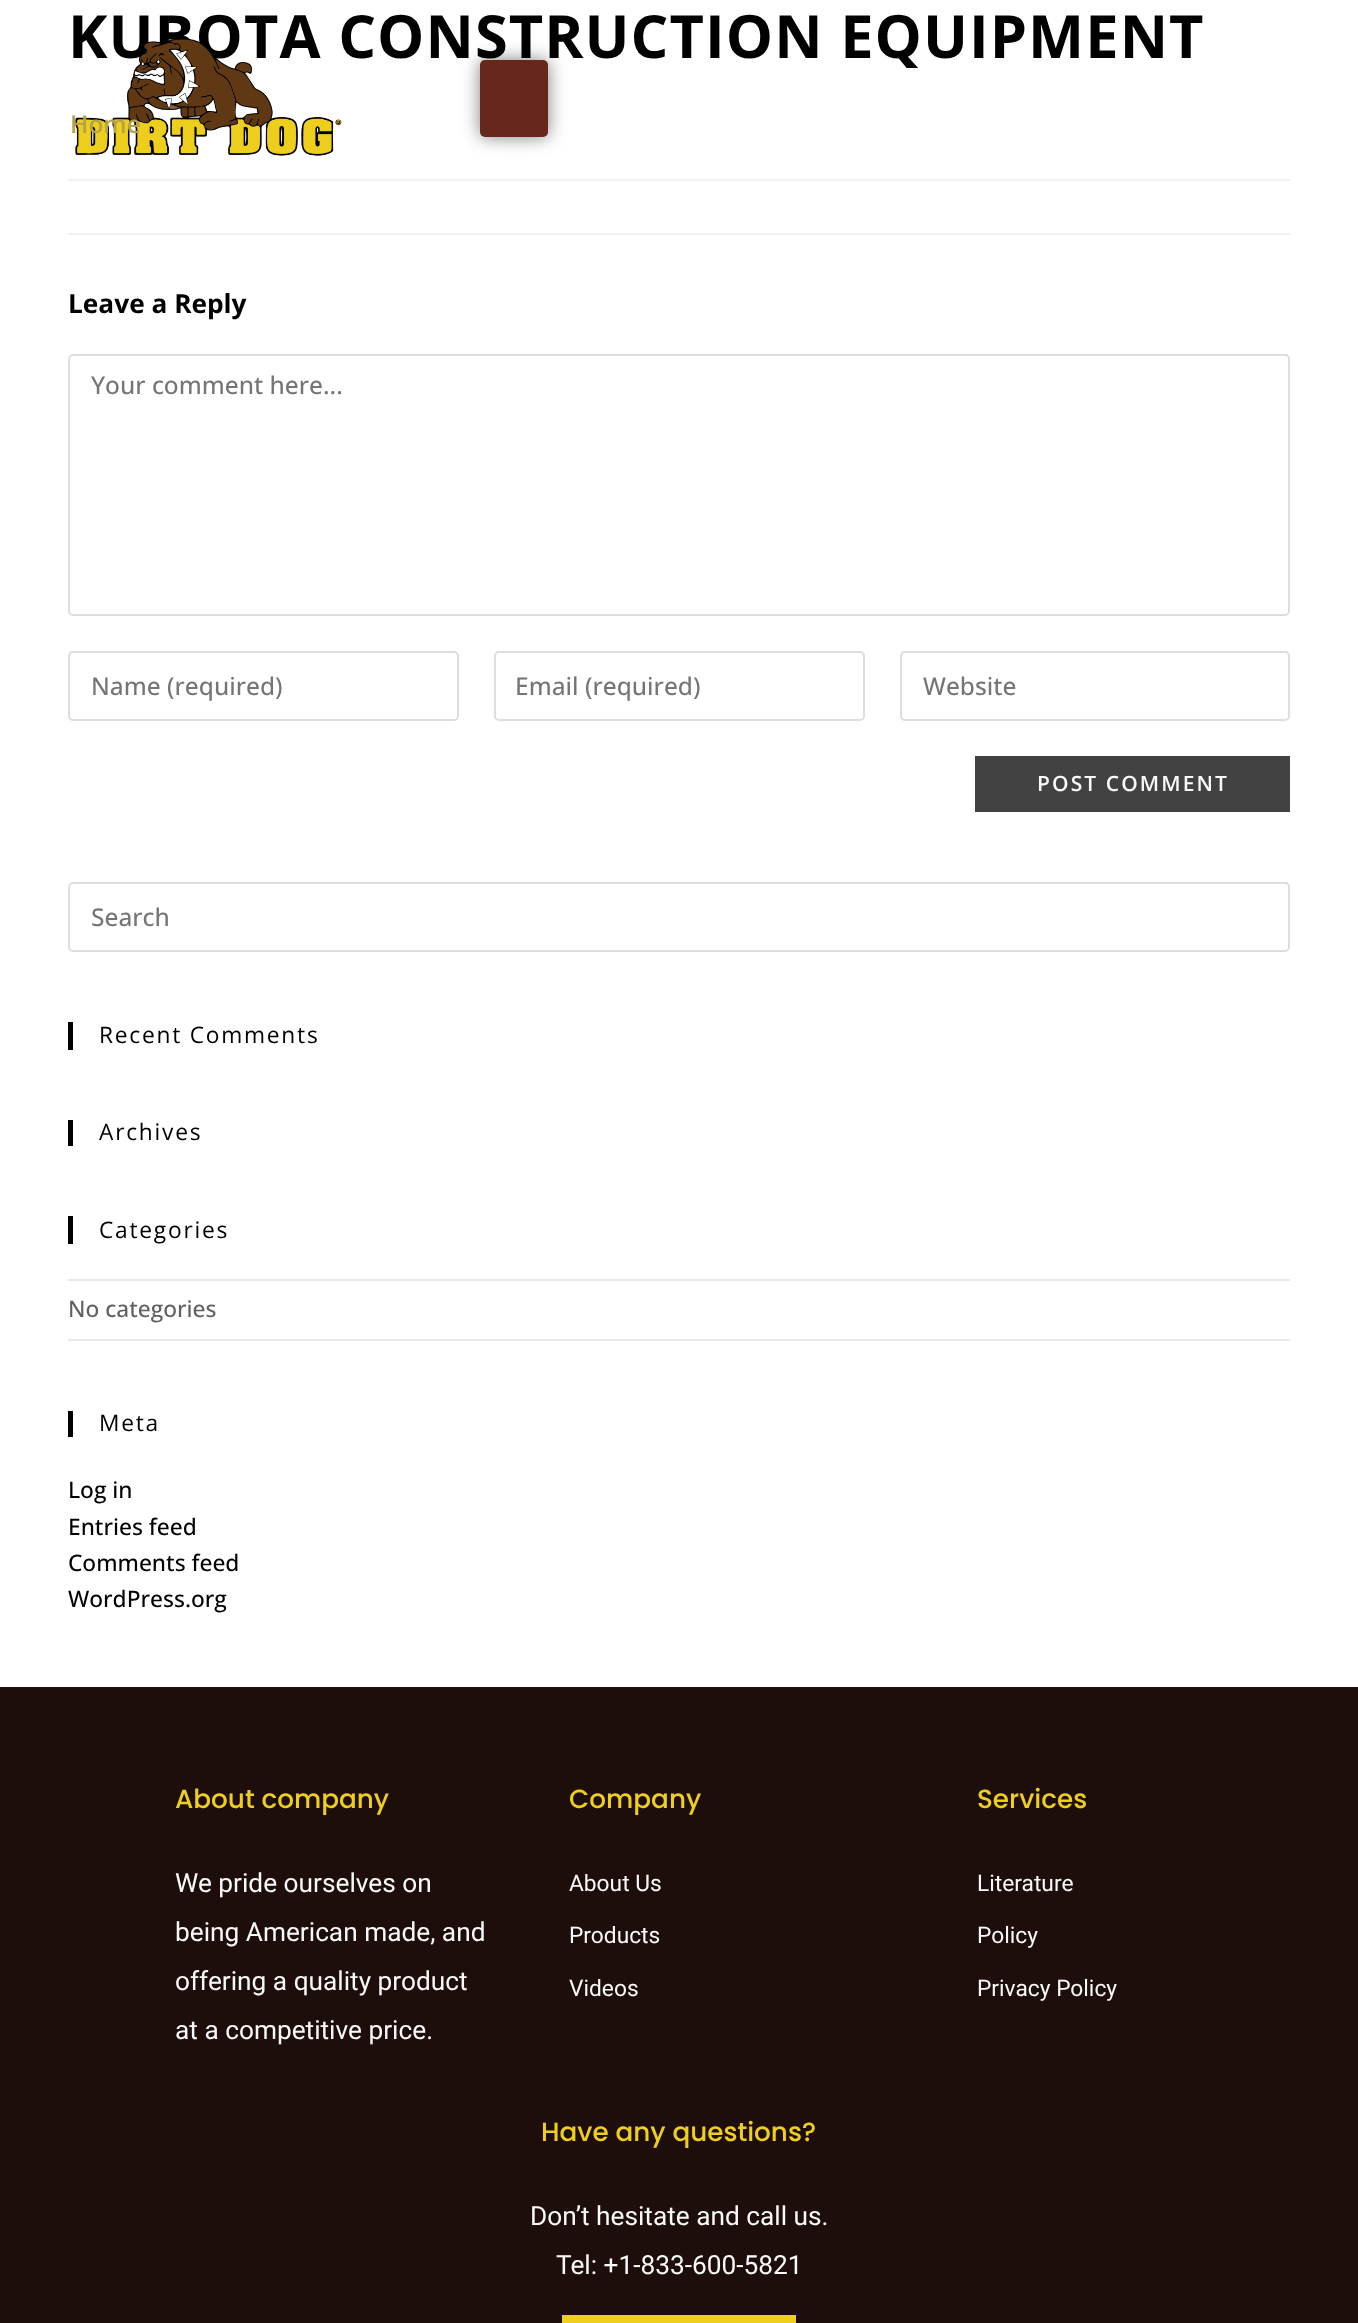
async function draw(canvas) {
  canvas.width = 1358
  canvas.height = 2323
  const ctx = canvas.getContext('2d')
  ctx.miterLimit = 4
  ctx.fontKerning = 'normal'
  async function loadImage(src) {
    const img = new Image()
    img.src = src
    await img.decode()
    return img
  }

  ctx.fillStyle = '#fff'
  ctx.fillRect(0, 0, 1358, 2323)
  ctx.fillStyle = '#f1f1f1'
  ctx.fillRect(68, 179, 1222, 2)
  ctx.letterSpacing = '1.05px'
  ctx.font = 'bold 59.5px Open Sans'
  ctx.fillStyle = '#000'
  ctx.fillText('KUBOTA CONSTRUCTION EQUIPMENT', 68, 58)
  ctx.fillStyle = '#f1f1f1'
  ctx.fillRect(68, 233, 1222, 2)
  ctx.letterSpacing = '0px'
  ctx.font = 'bold 26.25px Open Sans'
  ctx.fillStyle = '#000'
  ctx.fillText('Leave a Reply', 68, 313)
  ctx.beginPath()
  ctx.roundRect(69, 355, 1220, 260, 4)
  ctx.strokeStyle = '#ddd'
  ctx.lineWidth = 2
  ctx.stroke()
  ctx.font = '500 24.5px Open Sans'
  ctx.fillStyle = '#757575'
  ctx.fillText('Your comment here...', 91, 394)
  ctx.beginPath()
  ctx.roundRect(69, 652, 389, 68, 4)
  ctx.stroke()
  ctx.fillText('Name (required)', 91, 695)
  ctx.beginPath()
  ctx.roundRect(495, 652, 369, 68, 4)
  ctx.stroke()
  ctx.fillText('Email (required)', 515, 695)
  ctx.beginPath()
  ctx.roundRect(901, 652, 388, 68, 4)
  ctx.stroke()
  ctx.fillText('Website', 923, 695)
  ctx.fillStyle = '#424242'
  ctx.fillRect(975, 756, 315, 56)
  ctx.letterSpacing = '2.1px'
  ctx.font = '600 21px Open Sans'
  ctx.fillStyle = '#fafafa'
  ctx.fillText('POST COMMENT', 1037, 791)
  ctx.beginPath()
  ctx.roundRect(69, 883, 1220, 68, 4)
  ctx.stroke()
  ctx.letterSpacing = '0px'
  ctx.font = '500 24.5px Open Sans'
  ctx.fillStyle = '#757575'
  ctx.fillText('Search', 91, 926)
  ctx.fillStyle = '#000'
  ctx.fillRect(68, 1022, 5, 28)
  ctx.letterSpacing = '1.75px'
  ctx.font = '22.75px Open Sans'
  ctx.fillText('Recent Comments', 99, 1043)
  ctx.fillRect(68, 1120, 5, 26)
  ctx.fillText('Archives', 99, 1140)
  ctx.fillRect(68, 1216, 5, 28)
  ctx.fillText('Categories', 99, 1238)
  ctx.fillStyle = '#e9e9e9'
  ctx.fillRect(68, 1279, 1222, 2)
  ctx.fillRect(68, 1339, 1222, 2)
  ctx.letterSpacing = '0px'
  ctx.font = '500 22.75px Open Sans'
  ctx.fillStyle = '#606060'
  ctx.fillText('No categories', 68, 1317)
  ctx.fillStyle = '#000'
  ctx.fillRect(68, 1411, 5, 26)
  ctx.letterSpacing = '1.75px'
  ctx.font = '22.75px Open Sans'
  ctx.fillText('Meta', 99, 1431)
  ctx.letterSpacing = '0px'
  ctx.font = '500 22.75px Open Sans'
  ctx.fillText('Log in', 68, 1498)
  ctx.fillText('Entries feed', 68, 1535)
  ctx.fillText('Comments feed', 68, 1571)
  ctx.fillText('WordPress.org', 68, 1607)
  ctx.drawImage(await loadImage('image0.png'), 75, 38, 267, 118)
  ctx.font = '600 24.5px Open Sans'
  ctx.fillStyle = '#b5a347'
  ctx.fillText('Home', 70, 133)
  ctx.fillStyle = '#00000080'
  ctx.filter = 'blur(9px)'
  ctx.beginPath()
  ctx.roundRect(480, 60, 68, 77, 5)
  ctx.fill()
  ctx.filter = 'none'
  ctx.fillStyle = '#67271b'
  ctx.beginPath()
  ctx.roundRect(480, 60, 68, 77, 5)
  ctx.fill()
  ctx.fillStyle = '#1e0e0b'
  ctx.fillRect(0, 1687, 1358, 636)
  ctx.font = '500 26.25px Poppins'
  ctx.fillStyle = '#efcf1d'
  ctx.fillText('About company', 175, 1808)
  ctx.font = '26.25px Roboto'
  ctx.fillStyle = '#fafafa'
  ctx.fillText('We pride ourselves on', 175, 1892)
  ctx.fillText('being American made, and', 175, 1941)
  ctx.fillText('offering a quality product', 175, 1990)
  ctx.fillText('at a competitive price.', 175, 2039)
  ctx.font = '500 26.25px Poppins'
  ctx.fillStyle = '#efcf1d'
  ctx.fillText('Company', 569, 1808)
  ctx.font = '22.75px Roboto'
  ctx.fillStyle = '#fafafa'
  ctx.fillText('About Us', 569, 1891)
  ctx.fillText('Products', 569, 1943)
  ctx.fillText('Videos', 569, 1996)
  ctx.font = '500 26.25px Poppins'
  ctx.fillStyle = '#efcf1d'
  ctx.fillText('Services', 977, 1808)
  ctx.font = '22.75px Roboto'
  ctx.fillStyle = '#fafafa'
  ctx.fillText('Literature', 977, 1891)
  ctx.fillText('Policy', 977, 1943)
  ctx.fillText('Privacy Policy', 977, 1996)
  ctx.font = '500 26.25px Poppins'
  ctx.fillStyle = '#efcf1d'
  ctx.fillText('Have any questions?', 541, 2141)
  ctx.font = '26.25px Roboto'
  ctx.fillStyle = '#fafafa'
  ctx.fillText('Don’t hesitate and call us.', 530, 2225)
  ctx.fillText('Tel: +1-833-600-5821', 556, 2274)
  ctx.fillStyle = '#efcf1d'
  ctx.fillRect(562, 2315, 234, 8)
}

draw(document.querySelector('canvas'))
